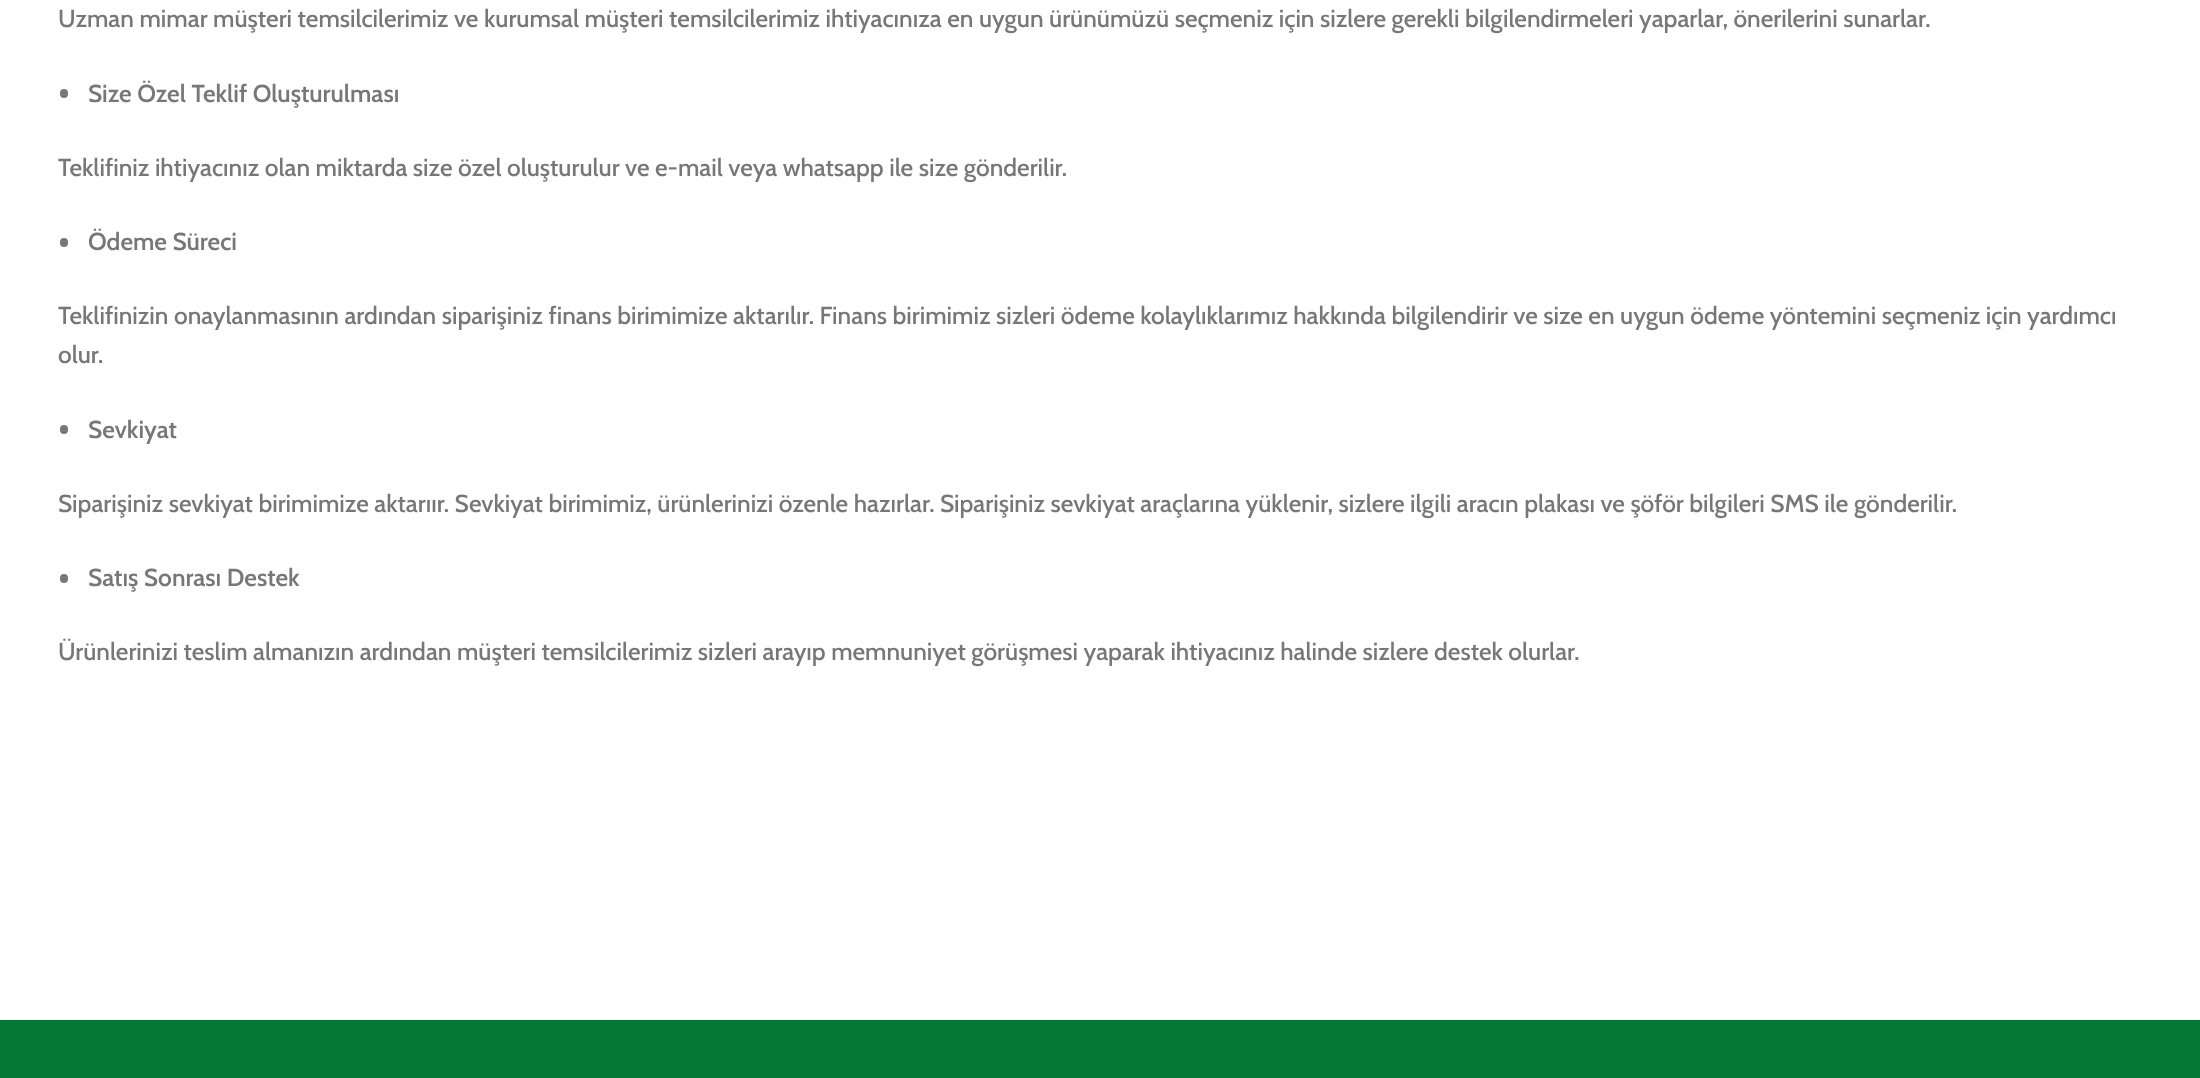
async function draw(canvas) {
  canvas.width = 2200
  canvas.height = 1078
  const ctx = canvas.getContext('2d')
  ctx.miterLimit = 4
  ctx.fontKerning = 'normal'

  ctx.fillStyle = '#fff'
  ctx.fillRect(0, 0, 2200, 1078)
  ctx.font = '500 24.5px Cabin'
  ctx.fillStyle = '#777'
  ctx.fillText('Uzman mimar müşteri temsilcilerimiz ve kurumsal müşteri temsilcilerimiz ihtiyacınıza en uygun ürünümüzü seçmeniz için sizlere gerekli bilgilendirmeleri yaparlar, önerilerini sunarlar.', 58, 27)
  ctx.beginPath()
  ctx.roundRect(60, 89, 8, 9, 4)
  ctx.fill()
  ctx.font = '600 24.5px Cabin'
  ctx.fillText('Size Özel Teklif Oluşturulması', 88, 102)
  ctx.font = '500 24.5px Cabin'
  ctx.fillText('Teklifiniz ihtiyacınız olan miktarda size özel oluşturulur ve e-mail veya whatsapp ile size gönderilir.', 58, 176)
  ctx.beginPath()
  ctx.roundRect(60, 238, 8, 9, 4)
  ctx.fill()
  ctx.font = '600 24.5px Cabin'
  ctx.fillText('Ödeme Süreci', 88, 250)
  ctx.font = '500 24.5px Cabin'
  ctx.fillText('Teklifinizin onaylanmasının ardından siparişiniz finans birimimize aktarılır. Finans birimimiz sizleri ödeme kolaylıklarımız hakkında bilgilendirir ve size en uygun ödeme yöntemini seçmeniz için yardımcı', 58, 324)
  ctx.fillText('olur.', 58, 363)
  ctx.beginPath()
  ctx.roundRect(60, 425, 8, 9, 4)
  ctx.fill()
  ctx.font = '600 24.5px Cabin'
  ctx.fillText('Sevkiyat', 88, 438)
  ctx.font = '500 24.5px Cabin'
  ctx.fillText('Siparişiniz sevkiyat birimimize aktarıır. Sevkiyat birimimiz, ürünlerinizi özenle hazırlar. Siparişiniz sevkiyat araçlarına yüklenir, sizlere ilgili aracın plakası ve şöför bilgileri SMS ile gönderilir.', 58, 512)
  ctx.beginPath()
  ctx.roundRect(60, 574, 8, 9, 4)
  ctx.fill()
  ctx.font = '600 24.5px Cabin'
  ctx.fillText('Satış Sonrası Destek', 88, 586)
  ctx.font = '500 24.5px Cabin'
  ctx.fillText('Ürünlerinizi teslim almanızın ardından müşteri temsilcilerimiz sizleri arayıp memnuniyet görüşmesi yaparak ihtiyacınız halinde sizlere destek olurlar.', 58, 660)
  ctx.fillStyle = '#027834'
  ctx.fillRect(0, 1020, 2200, 58)
}

draw(document.querySelector('canvas'))
